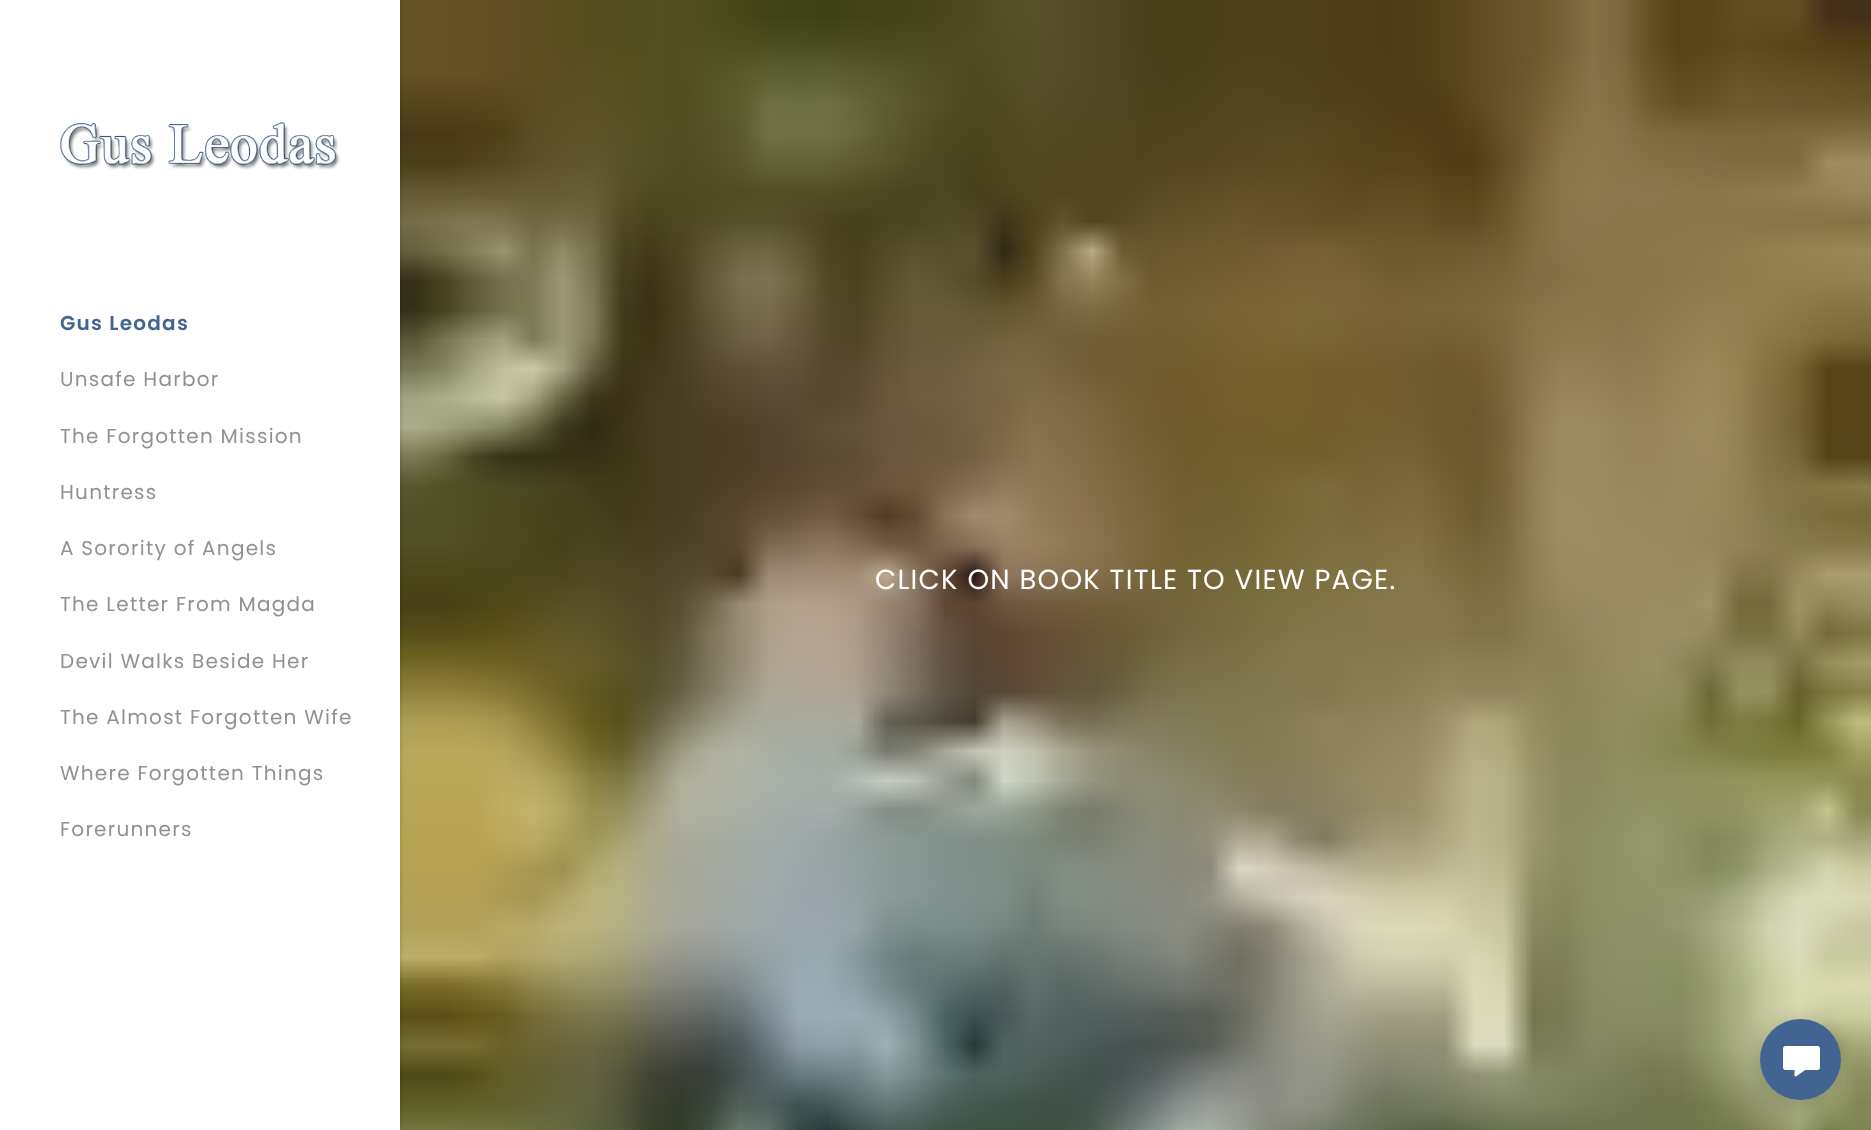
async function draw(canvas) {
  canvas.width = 1871
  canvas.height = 1130
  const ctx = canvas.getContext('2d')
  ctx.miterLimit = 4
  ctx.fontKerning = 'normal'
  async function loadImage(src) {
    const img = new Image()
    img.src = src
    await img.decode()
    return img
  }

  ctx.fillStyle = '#fff'
  ctx.fillRect(0, 0, 1871, 1130)
  ctx.drawImage(await loadImage('image1.png'), 400, 0, 1471, 1130)
  ctx.save()
  ctx.beginPath()
  ctx.rect(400, 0, 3, 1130)
  ctx.clip()
  ctx.fillStyle = '#00000033'
  ctx.filter = 'blur(2.5px)'
  ctx.beginPath()
  ctx.rect(0, 0, 400, 1130)
  ctx.fill()
  ctx.filter = 'none'
  ctx.restore()
  ctx.drawImage(await loadImage('image0.png'), 60, 122, 280, 48)
  ctx.letterSpacing = '1.25px'
  ctx.font = '600 20px Poppins'
  ctx.fillStyle = '#426492'
  ctx.fillText('Gus Leodas', 60, 330)
  ctx.font = '20px Poppins'
  ctx.fillStyle = '#919191'
  ctx.fillText('Unsafe Harbor', 60, 386)
  ctx.fillText('The Forgotten Mission', 60, 443)
  ctx.fillText('Huntress', 60, 499)
  ctx.fillText('A Sorority of Angels', 60, 555)
  ctx.fillText('The Letter From Magda', 60, 611)
  ctx.fillText('Devil Walks Beside Her', 60, 668)
  ctx.fillText('The Almost Forgotten Wife', 60, 724)
  ctx.fillText('Where Forgotten Things', 60, 780)
  ctx.fillText('Forerunners', 60, 836)
  ctx.font = '27.5px Poppins'
  ctx.fillStyle = '#fff'
  ctx.fillText('CLICK ON BOOK TITLE TO VIEW PAGE.', 875, 589)
  ctx.fillStyle = '#00000040'
  ctx.filter = 'blur(11px)'
  ctx.beginPath()
  ctx.roundRect(1760, 1023, 81, 81, 40.5)
  ctx.fill()
  ctx.filter = 'none'
  ctx.fillStyle = '#426492'
  ctx.beginPath()
  ctx.arc(1800.5, 1059.5, 40.5, 0, 2 * Math.PI)
  ctx.fill()
  ctx.drawImage(await loadImage('image2.png'), 1783, 1046, 37, 31)
}

draw(document.querySelector('canvas'))
